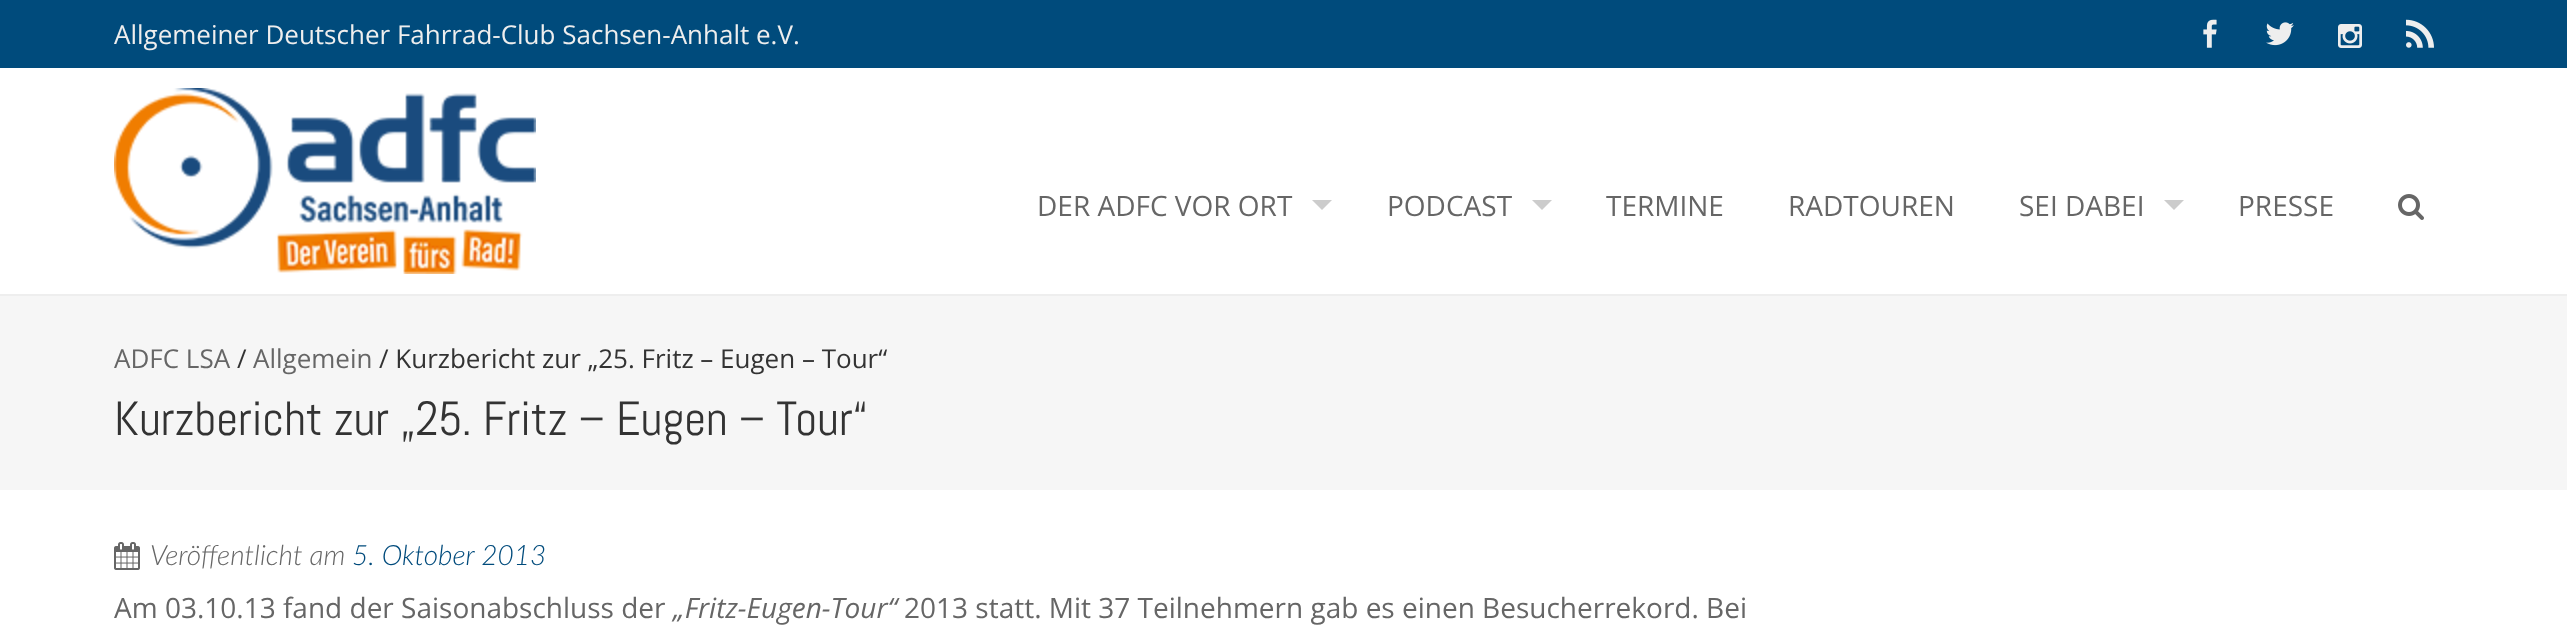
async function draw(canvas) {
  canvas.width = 2567
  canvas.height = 641
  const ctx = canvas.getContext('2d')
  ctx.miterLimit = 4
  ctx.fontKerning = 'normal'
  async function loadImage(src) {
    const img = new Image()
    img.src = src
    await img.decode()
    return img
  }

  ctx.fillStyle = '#fff'
  ctx.fillRect(0, 0, 2567, 641)
  ctx.fillStyle = '#004b7c'
  ctx.fillRect(0, 0, 2567, 68)
  ctx.font = '26px Open Sans'
  ctx.fillStyle = '#eee'
  ctx.fillText('Allgemeiner Deutscher Fahrrad-Club Sachsen-Anhalt e.V.', 114, 44)
  ctx.drawImage(await loadImage('image0.png'), 2203, 19, 14, 29)
  ctx.drawImage(await loadImage('image1.png'), 2266, 22, 28, 24)
  ctx.drawImage(await loadImage('image2.png'), 2338, 24, 24, 24)
  ctx.drawImage(await loadImage('image3.png'), 2406, 19, 28, 29)
  ctx.fillRect(0, 294, 2567, 2)
  ctx.drawImage(await loadImage('image4.png'), 114, 88, 422, 186)
  ctx.font = '28px Open Sans'
  ctx.fillStyle = '#666'
  ctx.fillText('DER ADFC VOR ORT', 1037, 216)
  ctx.fillStyle = '#ccc'
  ctx.beginPath()
  ctx.moveTo(1312, 200)
  ctx.lineTo(1332, 200)
  ctx.lineTo(1322, 210)
  ctx.closePath()
  ctx.fill()
  ctx.fillStyle = '#666'
  ctx.fillText('PODCAST', 1387, 216)
  ctx.fillStyle = '#ccc'
  ctx.beginPath()
  ctx.moveTo(1532, 200)
  ctx.lineTo(1552, 200)
  ctx.lineTo(1542, 210)
  ctx.closePath()
  ctx.fill()
  ctx.fillStyle = '#666'
  ctx.fillText('TERMINE', 1606, 216)
  ctx.fillText('RADTOUREN', 1788, 216)
  ctx.fillText('SEI DABEI', 2019, 216)
  ctx.fillStyle = '#ccc'
  ctx.beginPath()
  ctx.moveTo(2164, 200)
  ctx.lineTo(2184, 200)
  ctx.lineTo(2174, 210)
  ctx.closePath()
  ctx.fill()
  ctx.fillStyle = '#666'
  ctx.fillText('PRESSE', 2238, 216)
  ctx.drawImage(await loadImage('image5.png'), 2398, 194, 26, 26)
  ctx.fillStyle = '#f6f6f6'
  ctx.fillRect(0, 296, 2567, 194)
  ctx.font = '26px Open Sans'
  ctx.fillStyle = '#666'
  ctx.fillText('ADFC LSA', 114, 368)
  ctx.fillStyle = '#333'
  ctx.fillText('/', 237, 368)
  ctx.fillStyle = '#666'
  ctx.fillText('Allgemein', 253, 368)
  ctx.fillStyle = '#333'
  ctx.fillText('/ Kurzbericht zur „25. Fritz – Eugen – Tour“', 379, 368)
  ctx.font = '48px Abel'
  ctx.fillText('Kurzbericht zur „25. Fritz – Eugen – Tour“', 114, 435)
  ctx.drawImage(await loadImage('image6.png'), 114, 542, 26, 28)
  ctx.font = 'italic 300 28px Lato'
  ctx.fillStyle = '#666'
  ctx.fillText('Veröffentlicht am', 150, 565)
  ctx.fillStyle = '#004b7c'
  ctx.fillText('5. Oktober 2013', 352, 565)
  ctx.font = '28px Open Sans'
  ctx.fillStyle = '#666'
  ctx.fillText('Am 03.10.13 fand der Saisonabschluss der', 114, 618)
  ctx.font = 'italic 28px Open Sans'
  ctx.fillText('„Fritz-Eugen-Tour“', 673, 618)
  ctx.font = '28px Open Sans'
  ctx.fillText('2013 statt. Mit 37 Teilnehmern gab es einen Besucherrekord. Bei', 904, 618)
}

draw(document.querySelector('canvas'))
